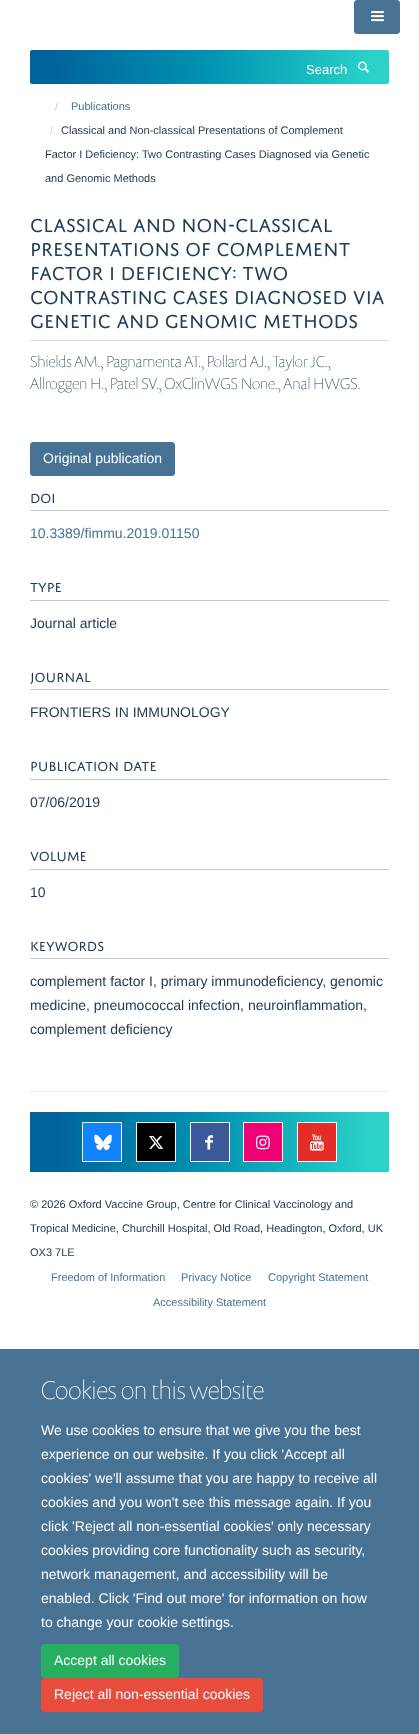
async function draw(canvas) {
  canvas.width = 419
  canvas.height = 1734
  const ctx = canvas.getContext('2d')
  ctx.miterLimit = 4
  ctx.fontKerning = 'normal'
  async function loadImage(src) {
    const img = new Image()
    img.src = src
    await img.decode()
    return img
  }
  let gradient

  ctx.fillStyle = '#fff'
  ctx.fillRect(0, 0, 419, 1734)
  ctx.fillStyle = '#487294'
  ctx.beginPath()
  ctx.roundRect(354.5, 0.5, 45, 33, 2.5)
  ctx.fill()
  ctx.strokeStyle = '#487294'
  ctx.stroke()
  ctx.drawImage(await loadImage('image0.png'), 371, 11, 13, 11)
  gradient = ctx.createLinearGradient(30, 67, 389, 67)
  gradient.addColorStop(0.05, '#00629b')
  gradient.addColorStop(0.5, '#0093b2')
  gradient.addColorStop(0.95, '#2ad2c9')
  ctx.fillStyle = gradient
  ctx.beginPath()
  ctx.roundRect(30, 50, 359, 34, 2)
  ctx.fill()
  ctx.font = '13px Liberation Sans'
  ctx.fillStyle = '#fff'
  ctx.fillText('Search', 306, 74)
  ctx.drawImage(await loadImage('image1.png'), 358, 61, 11, 12)
  ctx.font = '11px Liberation Sans'
  ctx.fillStyle = '#ccc'
  ctx.fillText('/', 55, 110)
  ctx.fillStyle = '#487294'
  ctx.fillText('Publications', 71, 110)
  ctx.fillStyle = '#ccc'
  ctx.fillText('/', 50, 134)
  ctx.fillStyle = '#1d3850'
  ctx.fillText('Classical and Non-classical Presentations of Complement', 61, 134)
  ctx.fillText('Factor I Deficiency: Two Contrasting Cases Diagnosed via Genetic', 45, 158)
  ctx.fillText('and Genomic Methods', 45, 182)
  ctx.fillStyle = '#ddd'
  ctx.fillRect(30, 340, 359, 1)
  ctx.font = '20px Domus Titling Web'
  ctx.fillStyle = '#203e58'
  ctx.fillText('CLASSICAL AND NON-CLASSICAL', 30, 232)
  ctx.fillText('PRESENTATIONS OF COMPLEMENT', 30, 256)
  ctx.fillText('FACTOR I DEFICIENCY: TWO', 30, 280)
  ctx.fillText('CONTRASTING CASES DIAGNOSED VIA', 30, 304)
  ctx.fillText('GENETIC AND GENOMIC METHODS', 30, 328)
  ctx.font = '100 16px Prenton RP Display'
  ctx.fillText('Shields AM., Pagnamenta AT., Pollard AJ., Taylor JC.,', 30, 367)
  ctx.fillText('Allroggen H., Patel SV., OxClinWGS None., Anal HWGS.', 30, 389)
  ctx.fillStyle = '#487294'
  ctx.beginPath()
  ctx.roundRect(30.5, 442.5, 144, 33, 2.5)
  ctx.fill()
  ctx.stroke()
  ctx.font = '14px Liberation Sans'
  ctx.fillStyle = '#fff'
  ctx.fillText('Original publication', 43, 463)
  ctx.fillStyle = '#c6cacf'
  ctx.fillRect(30, 510, 359, 1)
  ctx.font = '14px Domus Titling Web'
  ctx.fillStyle = '#203e58'
  ctx.fillText('DOI', 30, 503)
  ctx.font = '14px Liberation Sans'
  ctx.fillStyle = '#487294'
  ctx.fillText('10.3389/fimmu.2019.01150', 30, 538)
  ctx.fillStyle = '#c6cacf'
  ctx.fillRect(30, 600, 359, 1)
  ctx.font = '14px Domus Titling Web'
  ctx.fillStyle = '#203e58'
  ctx.fillText('TYPE', 30, 592)
  ctx.font = '14px Liberation Sans'
  ctx.fillStyle = '#1d3850'
  ctx.fillText('Journal article', 30, 628)
  ctx.fillStyle = '#c6cacf'
  ctx.fillRect(30, 689, 359, 1)
  ctx.font = '14px Domus Titling Web'
  ctx.fillStyle = '#203e58'
  ctx.fillText('JOURNAL', 30, 682)
  ctx.font = '14px Liberation Sans'
  ctx.fillStyle = '#1d3850'
  ctx.fillText('FRONTIERS IN IMMUNOLOGY', 30, 717)
  ctx.fillStyle = '#c6cacf'
  ctx.fillRect(30, 779, 359, 1)
  ctx.font = '14px Domus Titling Web'
  ctx.fillStyle = '#203e58'
  ctx.fillText('PUBLICATION DATE', 30, 771)
  ctx.font = '14px Liberation Sans'
  ctx.fillStyle = '#1d3850'
  ctx.fillText('07/06/2019', 30, 807)
  ctx.fillStyle = '#c6cacf'
  ctx.fillRect(30, 869, 359, 1)
  ctx.font = '14px Domus Titling Web'
  ctx.fillStyle = '#203e58'
  ctx.fillText('VOLUME', 30, 861)
  ctx.font = '14px Liberation Sans'
  ctx.fillStyle = '#1d3850'
  ctx.fillText('10', 30, 897)
  ctx.fillStyle = '#c6cacf'
  ctx.fillRect(30, 958, 359, 1)
  ctx.font = '14px Domus Titling Web'
  ctx.fillStyle = '#203e58'
  ctx.fillText('KEYWORDS', 30, 951)
  ctx.font = '14px Liberation Sans'
  ctx.fillStyle = '#1d3850'
  ctx.fillText('complement factor I, primary immunodeficiency, genomic', 30, 986)
  ctx.fillText('medicine, pneumococcal infection, neuroinflammation,', 30, 1010)
  ctx.fillText('complement deficiency', 30, 1034)
  ctx.fillStyle = '#eee'
  ctx.fillRect(30, 1091, 359, 1)
  gradient = ctx.createLinearGradient(30, 1142, 389, 1142)
  gradient.addColorStop(0.05, '#00629b')
  gradient.addColorStop(0.5, '#0093b2')
  gradient.addColorStop(0.95, '#2ad2c9')
  ctx.fillStyle = gradient
  ctx.fillRect(30, 1112, 359, 60)
  ctx.fillStyle = '#1183fc'
  ctx.beginPath()
  ctx.rect(82.5, 1122.5, 39, 39)
  ctx.fill()
  ctx.strokeStyle = '#fff'
  ctx.stroke()
  ctx.drawImage(await loadImage('image2.png'), 94, 1134, 18, 17)
  ctx.fillStyle = '#000'
  ctx.beginPath()
  ctx.rect(136.5, 1122.5, 39, 39)
  ctx.fill()
  ctx.stroke()
  ctx.drawImage(await loadImage('image3.png'), 149, 1135, 15, 14)
  ctx.fillStyle = '#3b5998'
  ctx.beginPath()
  ctx.rect(190.5, 1122.5, 39, 39)
  ctx.fill()
  ctx.stroke()
  ctx.drawImage(await loadImage('image4.png'), 205, 1135, 8, 15)
  ctx.fillStyle = '#ef0074'
  ctx.beginPath()
  ctx.rect(243.5, 1122.5, 39, 39)
  ctx.fill()
  ctx.stroke()
  ctx.drawImage(await loadImage('image5.png'), 256, 1135, 14, 15)
  ctx.fillStyle = '#e52d27'
  ctx.beginPath()
  ctx.rect(297.5, 1122.5, 39, 39)
  ctx.fill()
  ctx.stroke()
  ctx.drawImage(await loadImage('image6.png'), 310, 1134, 14, 17)
  ctx.font = '11px Liberation Sans'
  ctx.fillStyle = '#1d3850'
  ctx.fillText('© 2026 Oxford Vaccine Group, Centre for Clinical Vaccinology and', 30, 1208)
  ctx.fillText('Tropical Medicine, Churchill Hospital, Old Road, Headington, Oxford, UK', 30, 1232)
  ctx.fillText('OX3 7LE', 30, 1256)
  ctx.fillStyle = '#487294'
  ctx.fillText('Freedom of Information', 51, 1281)
  ctx.fillText('Privacy Notice', 181, 1281)
  ctx.fillText('Copyright Statement', 268, 1281)
  ctx.fillText('Accessibility Statement', 153, 1306)
  ctx.fillRect(0, 1349, 419, 385)
  ctx.font = '100 26px Prenton RP Display'
  ctx.fillStyle = '#fff'
  ctx.fillText('Cookies on this website', 41, 1399)
  ctx.font = '14px Liberation Sans'
  ctx.fillText('We use cookies to ensure that we give you the best', 41, 1435)
  ctx.fillText('experience on our website. If you click \'Accept all', 41, 1459)
  ctx.fillText('cookies\' we\'ll assume that you are happy to receive all', 41, 1483)
  ctx.fillText('cookies and you won\'t see this message again. If you', 41, 1507)
  ctx.fillText('click \'Reject all non-essential cookies\' only necessary', 41, 1531)
  ctx.fillText('cookies providing core functionality such as security,', 41, 1555)
  ctx.fillText('network management, and accessibility will be', 41, 1579)
  ctx.fillText('enabled. Click \'Find out more\' for information on how', 41, 1603)
  ctx.fillText('to change your cookie settings.', 41, 1627)
  ctx.fillStyle = '#27ae60'
  ctx.beginPath()
  ctx.roundRect(41.5, 1644.5, 137, 33, 2.5)
  ctx.fill()
  ctx.strokeStyle = '#27ae60'
  ctx.stroke()
  ctx.fillStyle = '#fff'
  ctx.fillText('Accept all cookies', 54, 1665)
  ctx.fillStyle = '#e74c3c'
  ctx.beginPath()
  ctx.roundRect(41.5, 1678.5, 221, 33, 2.5)
  ctx.fill()
  ctx.strokeStyle = '#e74c3c'
  ctx.stroke()
  ctx.fillStyle = '#fff'
  ctx.fillText('Reject all non-essential cookies', 54, 1699)
}

draw(document.querySelector('canvas'))
